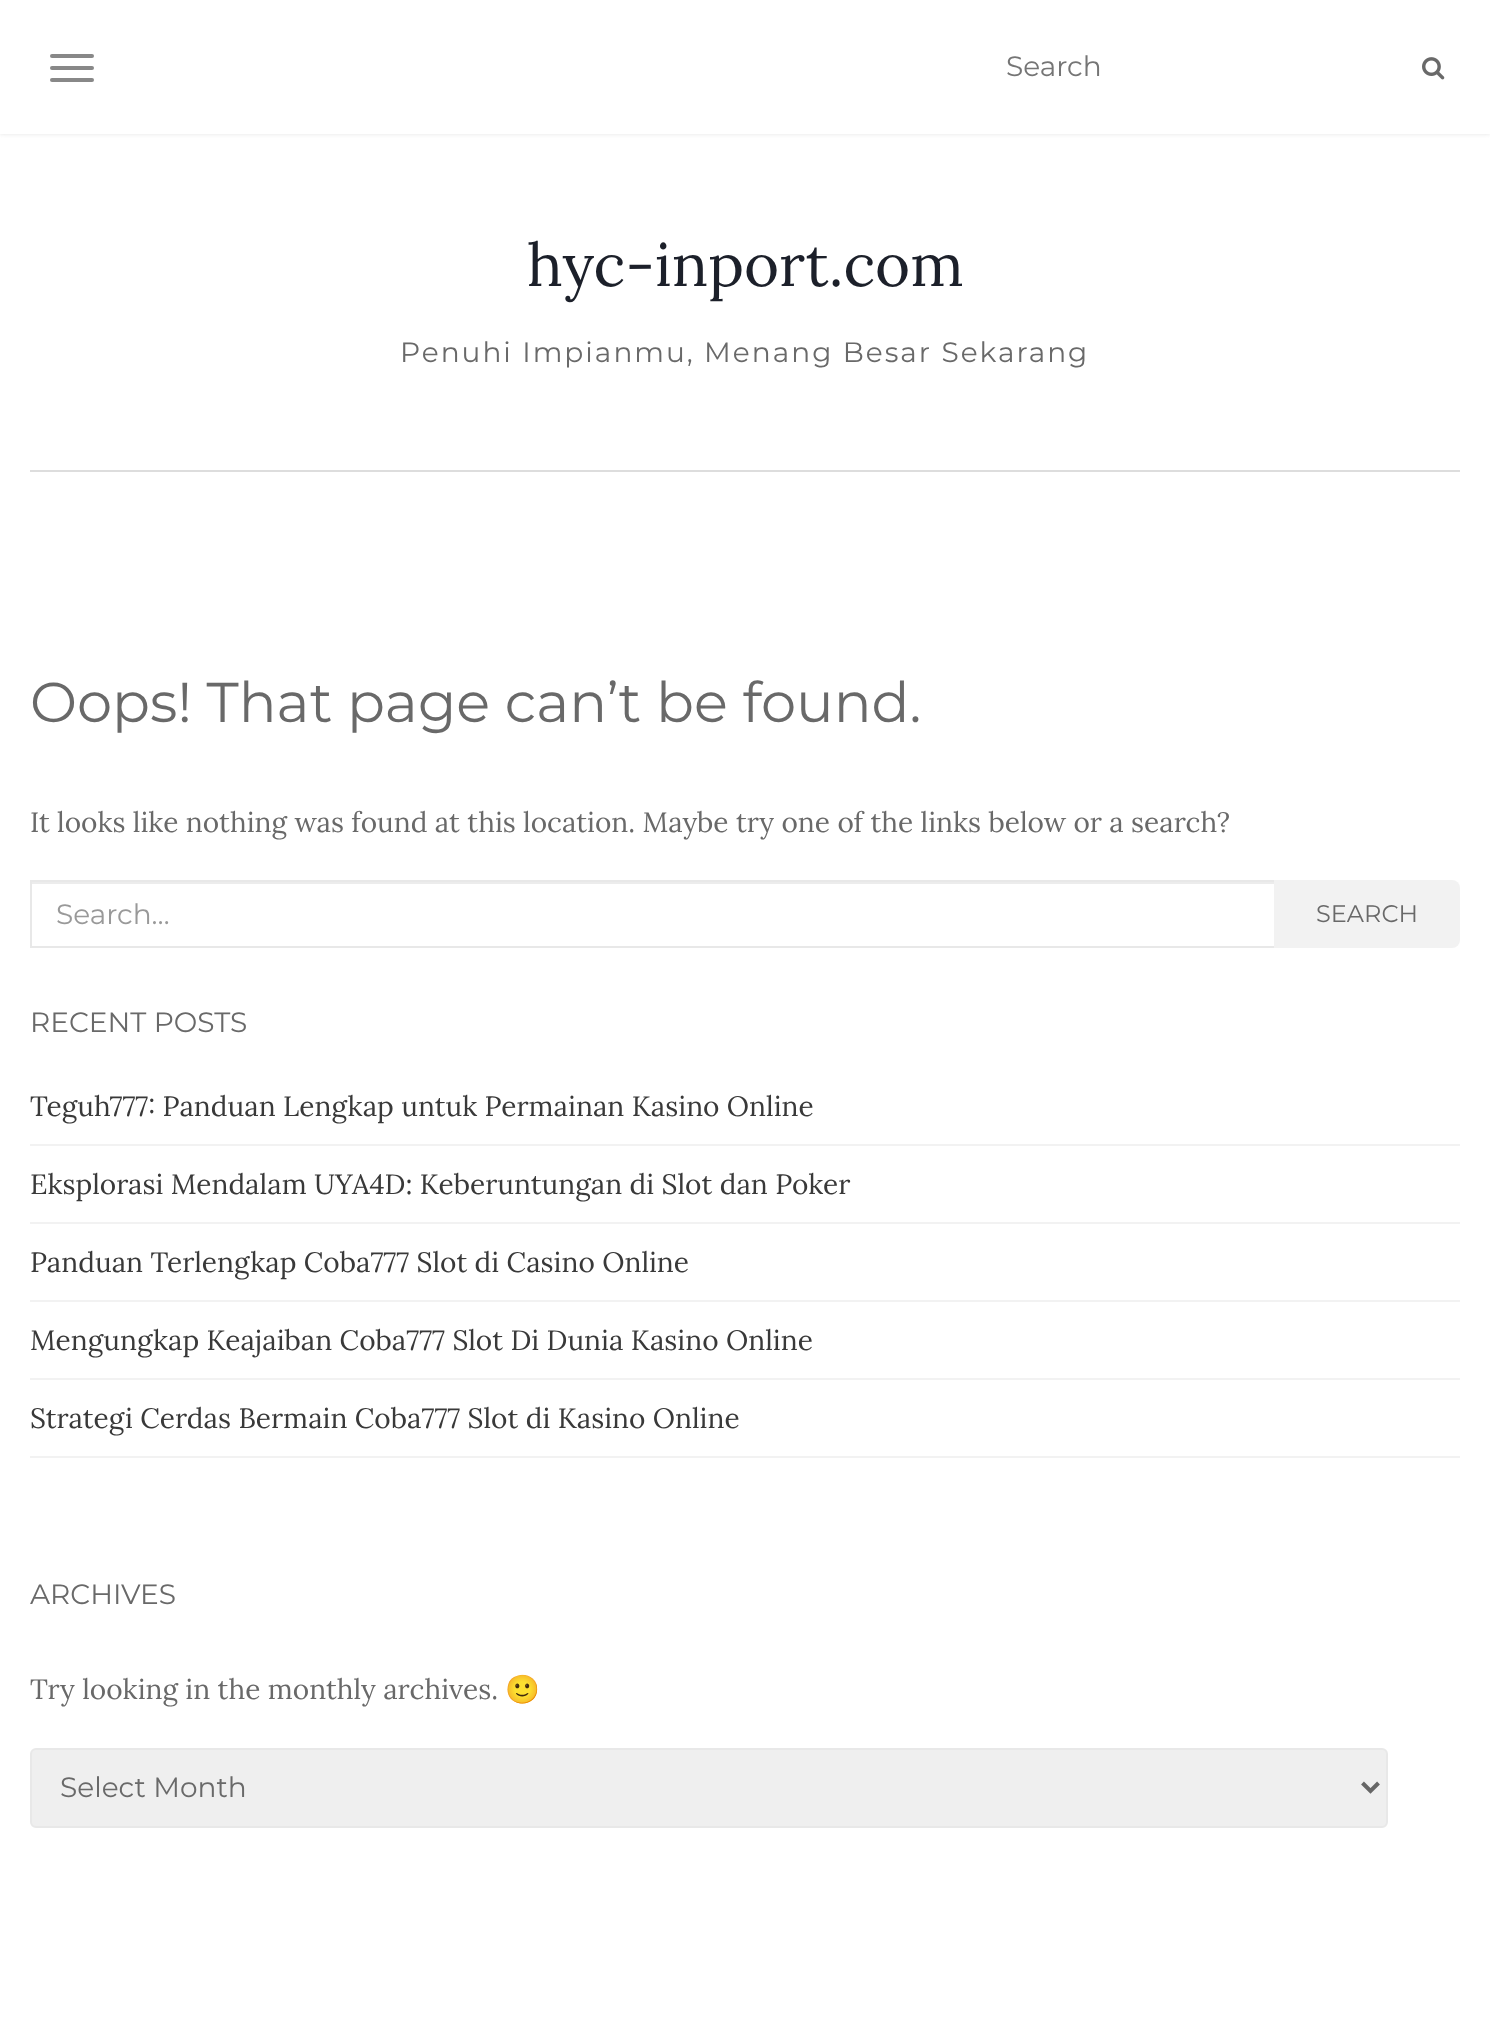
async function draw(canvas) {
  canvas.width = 1490
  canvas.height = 2033
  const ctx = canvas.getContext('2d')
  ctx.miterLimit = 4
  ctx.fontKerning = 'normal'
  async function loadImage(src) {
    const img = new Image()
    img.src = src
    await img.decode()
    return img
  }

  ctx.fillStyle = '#fff'
  ctx.fillRect(0, 0, 1490, 2033)
  ctx.save()
  ctx.beginPath()
  ctx.rect(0, 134, 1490, 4)
  ctx.clip()
  ctx.fillStyle = '#e3e3e3'
  ctx.filter = 'blur(2px)'
  ctx.beginPath()
  ctx.rect(0, 0, 1490, 134)
  ctx.fill()
  ctx.filter = 'none'
  ctx.restore()
  ctx.fillStyle = '#888'
  ctx.beginPath()
  ctx.roundRect(50, 54, 44, 4, 2)
  ctx.fill()
  ctx.beginPath()
  ctx.roundRect(50, 66, 44, 4, 2)
  ctx.fill()
  ctx.beginPath()
  ctx.roundRect(50, 78, 44, 4, 2)
  ctx.fill()
  ctx.font = '28px Montserrat'
  ctx.fillStyle = '#757575'
  ctx.fillText('Search', 1006, 76)
  ctx.drawImage(await loadImage('image0.png'), 1422, 57, 23, 23)
  ctx.font = '60px Lora'
  ctx.fillStyle = '#1c202a'
  ctx.fillText('hyc-inport.com', 527, 286)
  ctx.letterSpacing = '2px'
  ctx.font = '28px Montserrat'
  ctx.fillStyle = '#696969'
  ctx.fillText('Penuhi Impianmu, Menang Besar Sekarang', 400, 362)
  ctx.fillStyle = '#ddd'
  ctx.fillRect(30, 470, 1430, 2)
  ctx.letterSpacing = '0px'
  ctx.font = '56px Montserrat'
  ctx.fillStyle = '#696969'
  ctx.fillText('Oops! That page can’t be found.', 30, 722)
  ctx.font = '28px Lora'
  ctx.fillText('It looks like nothing was found at this location. Maybe try one of the links below or a search?', 30, 832)
  ctx.fillStyle = '#ececec'
  ctx.fillRect(32, 882, 1242, 2)
  ctx.strokeStyle = '#e8e8e8'
  ctx.lineWidth = 2
  ctx.strokeRect(31, 881, 1244, 66)
  ctx.font = '28px Montserrat'
  ctx.fillStyle = '#999'
  ctx.fillText('Search…', 56, 924)
  ctx.fillStyle = '#f2f2f2'
  ctx.beginPath()
  ctx.roundRect(1274, 880, 186, 68, [0, 8, 8, 0])
  ctx.fill()
  ctx.font = '24px Montserrat'
  ctx.fillStyle = '#696969'
  ctx.fillText('SEARCH', 1316, 922)
  ctx.font = '28px Montserrat'
  ctx.fillText('RECENT POSTS', 30, 1032)
  ctx.fillStyle = '#f2f2f2'
  ctx.fillRect(30, 1144, 1430, 2)
  ctx.font = '28px Lora'
  ctx.fillStyle = '#393939'
  ctx.fillText('Teguh777: Panduan Lengkap untuk Permainan Kasino Online', 30, 1116)
  ctx.fillStyle = '#f2f2f2'
  ctx.fillRect(30, 1222, 1430, 2)
  ctx.fillStyle = '#393939'
  ctx.fillText('Eksplorasi Mendalam UYA4D: Keberuntungan di Slot dan Poker', 30, 1194)
  ctx.fillStyle = '#f2f2f2'
  ctx.fillRect(30, 1300, 1430, 2)
  ctx.fillStyle = '#393939'
  ctx.fillText('Panduan Terlengkap Coba777 Slot di Casino Online', 30, 1272)
  ctx.fillStyle = '#f2f2f2'
  ctx.fillRect(30, 1378, 1430, 2)
  ctx.fillStyle = '#393939'
  ctx.fillText('Mengungkap Keajaiban Coba777 Slot Di Dunia Kasino Online', 30, 1350)
  ctx.fillStyle = '#f2f2f2'
  ctx.fillRect(30, 1456, 1430, 2)
  ctx.fillStyle = '#393939'
  ctx.fillText('Strategi Cerdas Bermain Coba777 Slot di Kasino Online', 30, 1428)
  ctx.font = '28px Montserrat'
  ctx.fillStyle = '#696969'
  ctx.fillText('ARCHIVES', 30, 1604)
  ctx.font = '28px Lora'
  ctx.fillText('Try looking in the monthly archives.', 30, 1699)
  ctx.font = '28px Noto Color Emoji'
  ctx.fillText('🙂', 505, 1699)
  ctx.fillStyle = '#efefef'
  ctx.beginPath()
  ctx.roundRect(31, 1749, 1356, 78, 5)
  ctx.fill()
  ctx.stroke()
  ctx.beginPath()
  ctx.moveTo(1362.5, 1783)
  ctx.lineTo(1370.5, 1791)
  ctx.lineTo(1378.5, 1783)
  ctx.strokeStyle = '#666'
  ctx.lineWidth = 4
  ctx.stroke()
  ctx.font = '28px Montserrat'
  ctx.fillStyle = '#696969'
  ctx.fillText('Select Month', 60, 1797)
}

draw(document.querySelector('canvas'))
